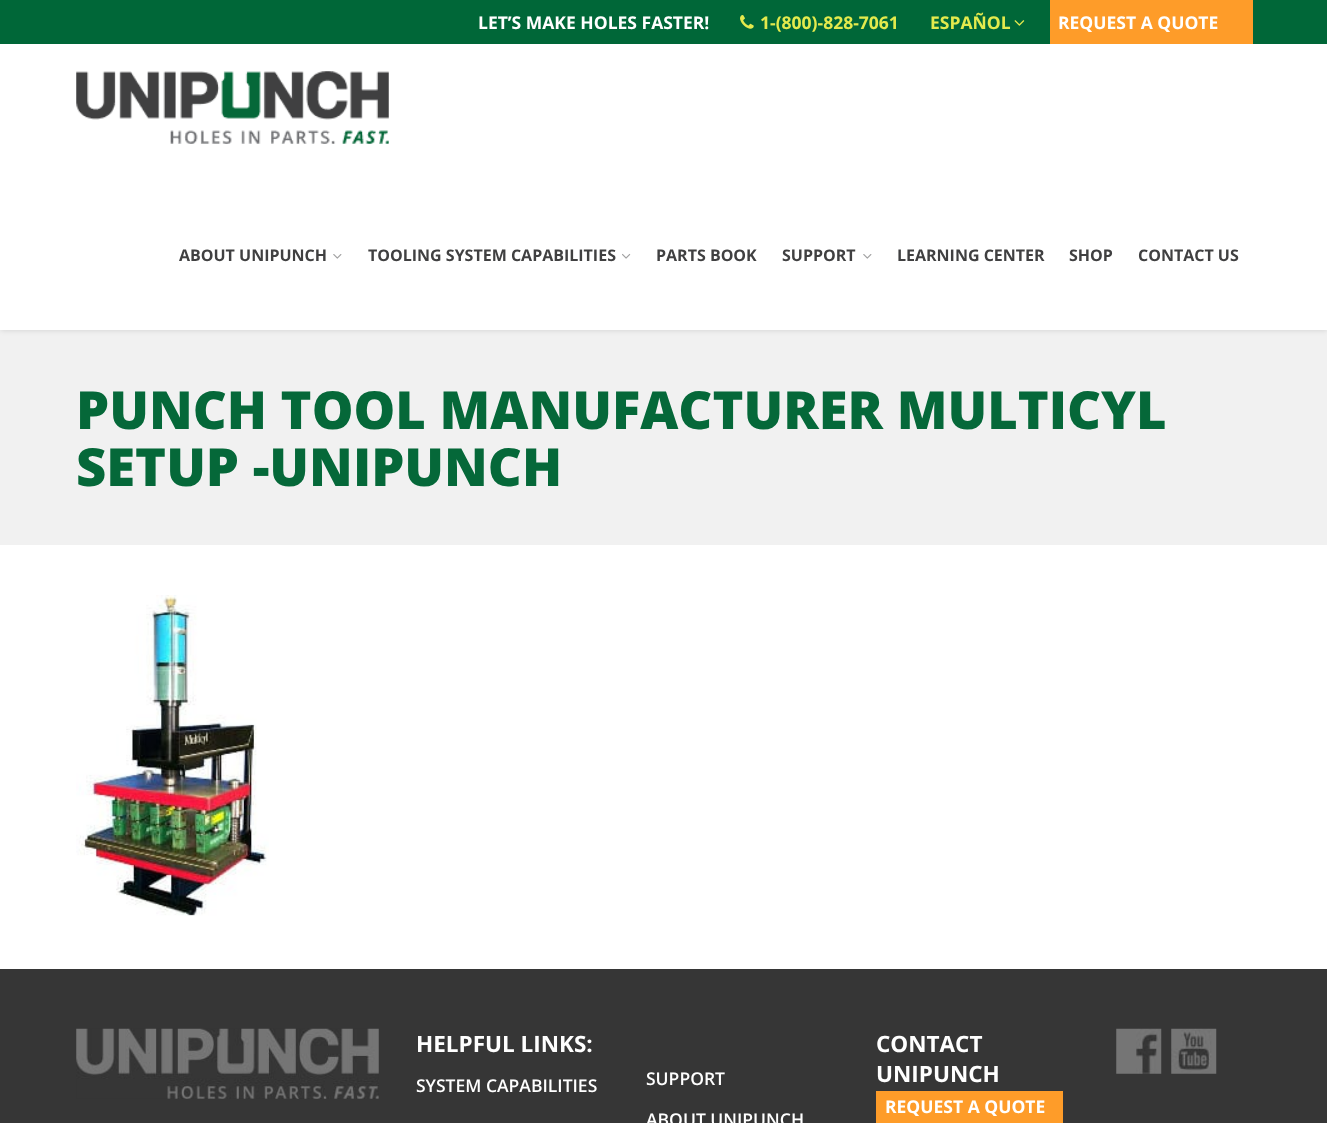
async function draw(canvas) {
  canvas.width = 1327
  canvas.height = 1123
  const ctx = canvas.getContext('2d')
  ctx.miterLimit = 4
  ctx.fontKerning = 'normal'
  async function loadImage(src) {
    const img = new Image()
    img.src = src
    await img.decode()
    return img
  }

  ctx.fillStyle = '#fff'
  ctx.fillRect(0, 0, 1327, 1123)
  ctx.fillStyle = '#006738'
  ctx.fillRect(0, 0, 1327, 44)
  ctx.font = 'bold 17.5px Open Sans'
  ctx.fillStyle = '#fff'
  ctx.fillText('LET’S MAKE HOLES FASTER!', 478, 29)
  ctx.drawImage(await loadImage('image0.png'), 740, 15, 14, 14)
  ctx.fillStyle = '#e3ea4d'
  ctx.fillText('1-(800)-828-7061', 760, 29)
  ctx.fillText('ESPAÑOL', 930, 29)
  ctx.drawImage(await loadImage('image1.png'), 1014, 20, 11, 6)
  ctx.fillStyle = '#fe9c29'
  ctx.fillRect(1050, 0, 203, 44)
  ctx.fillStyle = '#fff'
  ctx.fillText('REQUEST A QUOTE', 1058, 29)
  ctx.drawImage(await loadImage('image2.png'), 76, 71, 313, 73)
  ctx.font = 'bold 16px Open Sans'
  ctx.fillStyle = '#404041'
  ctx.fillText('ABOUT UNIPUNCH', 179, 261)
  ctx.drawImage(await loadImage('image3.png'), 333, 254, 9, 5)
  ctx.fillText('TOOLING SYSTEM CAPABILITIES', 368, 261)
  ctx.drawImage(await loadImage('image4.png'), 622, 253, 9, 6)
  ctx.fillText('PARTS BOOK', 656, 261)
  ctx.fillText('SUPPORT', 782, 261)
  ctx.drawImage(await loadImage('image3.png'), 863, 254, 9, 5)
  ctx.fillText('LEARNING CENTER', 897, 261)
  ctx.fillText('SHOP', 1069, 261)
  ctx.fillText('CONTACT US', 1138, 261)
  ctx.fillStyle = '#f1f1f1'
  ctx.fillRect(0, 330, 1327, 215)
  ctx.save()
  ctx.beginPath()
  ctx.rect(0, 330, 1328, 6)
  ctx.clip()
  ctx.fillStyle = '#0000001a'
  ctx.filter = 'blur(2.5px)'
  ctx.beginPath()
  ctx.roundRect(0, 325, 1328, 6, 3)
  ctx.fill()
  ctx.filter = 'none'
  ctx.restore()
  ctx.font = '800 52.5px Open Sans'
  ctx.fillStyle = '#056839'
  ctx.fillText('PUNCH TOOL MANUFACTURER MULTICYL', 76, 429)
  ctx.fillText('SETUP -UNIPUNCH', 76, 486)
  ctx.drawImage(await loadImage('image5.png'), 76, 595, 193, 321)
  ctx.fillStyle = '#363636'
  ctx.fillRect(0, 969, 1327, 154)
  ctx.drawImage(await loadImage('image6.png'), 76, 1028, 303, 71)
  ctx.font = 'bold 22.5px Open Sans'
  ctx.fillStyle = '#fff'
  ctx.fillText('HELPFUL LINKS:', 416, 1052)
  ctx.font = '600 17.5px Open Sans'
  ctx.fillText('SYSTEM CAPABILITIES', 416, 1092)
  ctx.font = 'bold 22.5px Open Sans'
  ctx.fillText('CONTACT', 876, 1052)
  ctx.fillText('UNIPUNCH', 876, 1082)
  ctx.drawImage(await loadImage('image7.png'), 1116, 1028, 46, 46)
  ctx.drawImage(await loadImage('image8.png'), 1171, 1028, 46, 46)
  ctx.font = '600 17.5px Open Sans'
  ctx.fillText('SUPPORT', 646, 1085)
  ctx.fillText('ABOUT UNIPUNCH', 646, 1126)
  ctx.fillStyle = '#fe9c29'
  ctx.fillRect(876, 1091, 187, 32)
  ctx.font = 'bold 17.5px Open Sans'
  ctx.fillStyle = '#fff'
  ctx.fillText('REQUEST A QUOTE', 885, 1113)
}

draw(document.querySelector('canvas'))
